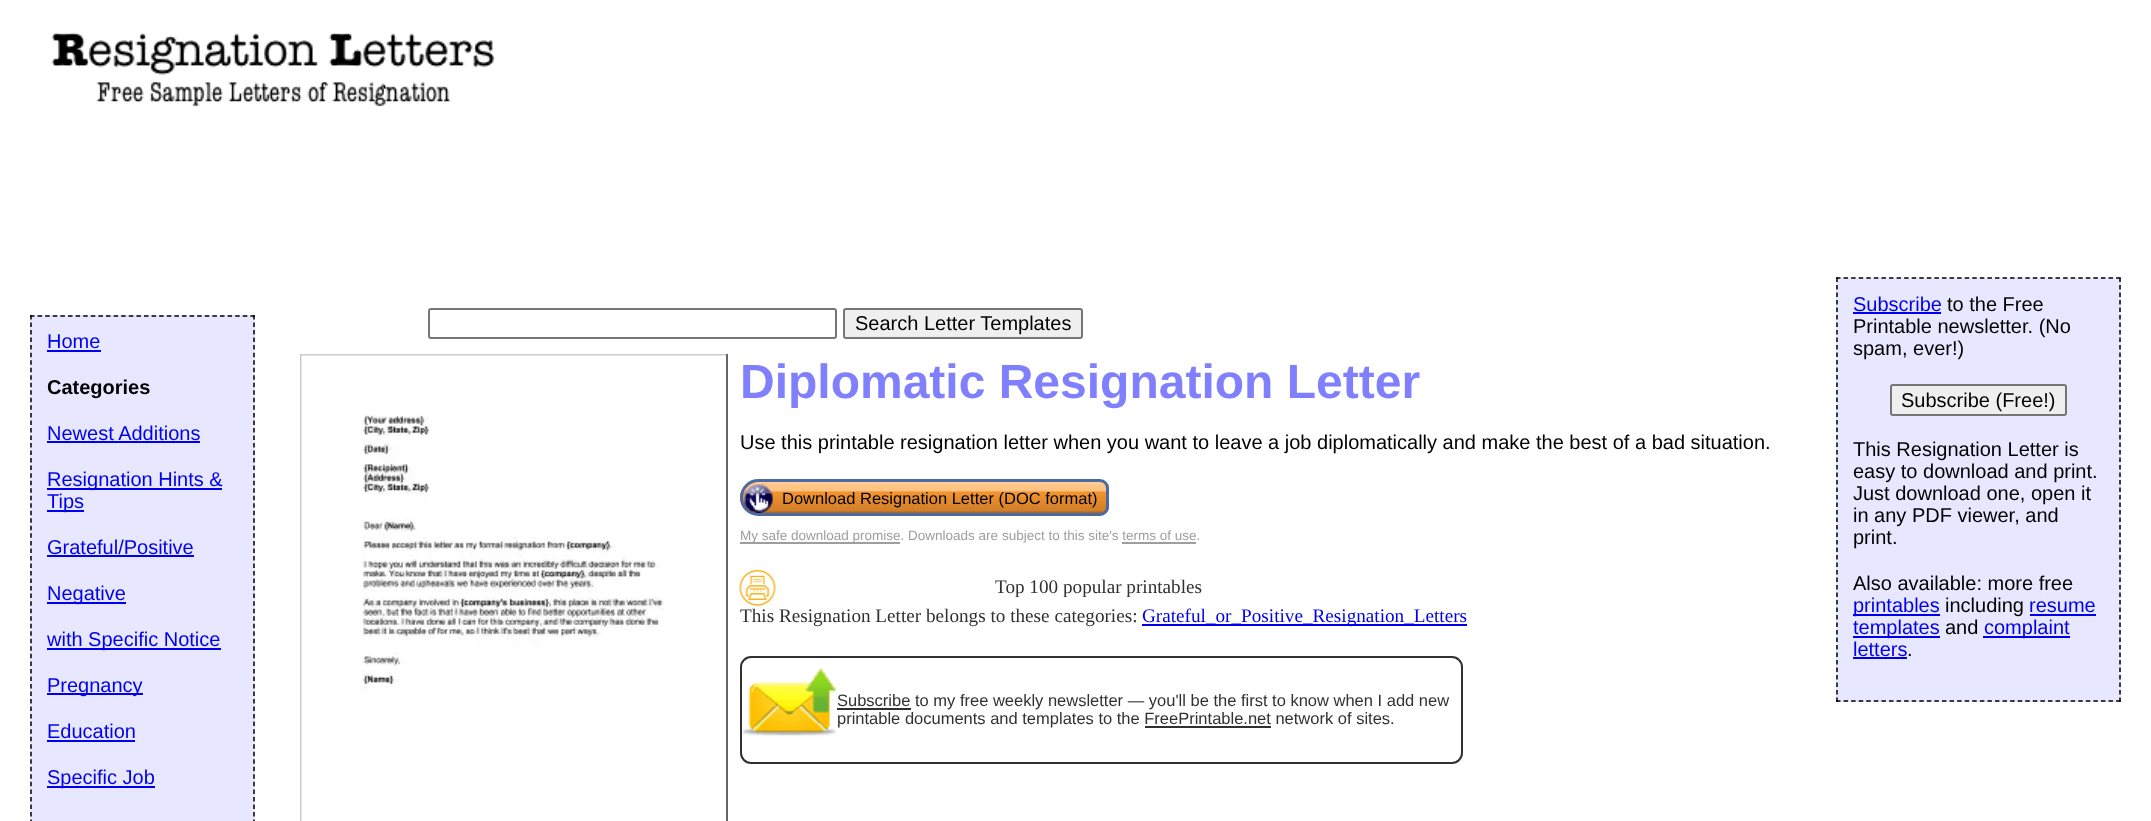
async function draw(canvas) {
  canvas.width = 2151
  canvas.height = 821
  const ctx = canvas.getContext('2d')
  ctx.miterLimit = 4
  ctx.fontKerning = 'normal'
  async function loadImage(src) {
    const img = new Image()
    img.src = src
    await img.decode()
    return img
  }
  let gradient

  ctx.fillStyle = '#fff'
  ctx.fillRect(0, 0, 2151, 821)
  ctx.drawImage(await loadImage('image0.png'), 51, 32, 444, 75)
  ctx.beginPath()
  ctx.roundRect(429, 309, 407, 29, 2)
  ctx.strokeStyle = '#767676'
  ctx.lineWidth = 2
  ctx.stroke()
  ctx.fillStyle = '#efefef'
  ctx.beginPath()
  ctx.roundRect(844, 309, 238, 29, 2)
  ctx.fill()
  ctx.stroke()
  ctx.font = '20px Liberation Sans'
  ctx.fillStyle = '#000'
  ctx.fillText('Search Letter Templates', 855, 330)
  ctx.fillStyle = '#e7e7ff'
  ctx.fillRect(1836, 278, 285, 424)
  ctx.beginPath()
  ctx.moveTo(1836, 278)
  ctx.lineTo(2121, 278)
  ctx.strokeStyle = '#000'
  ctx.lineWidth = 1.5
  ctx.setLineDash([4.5, 3.07])
  ctx.stroke()
  ctx.beginPath()
  ctx.moveTo(2120, 277.5)
  ctx.lineTo(2120, 702)
  ctx.setLineDash([4.5, 3])
  ctx.stroke()
  ctx.beginPath()
  ctx.moveTo(1836, 701)
  ctx.lineTo(2121, 701)
  ctx.setLineDash([4.5, 3.07])
  ctx.stroke()
  ctx.beginPath()
  ctx.moveTo(1837, 277.5)
  ctx.lineTo(1837, 702)
  ctx.setLineDash([4.5, 3])
  ctx.stroke()
  ctx.fillStyle = '#00e'
  ctx.fillText('Subscribe', 1853, 311)
  ctx.fillRect(1853, 312, 88, 2)
  ctx.fillStyle = '#000'
  ctx.fillText('to the Free', 1947, 311)
  ctx.fillText('Printable newsletter. (No', 1853, 333)
  ctx.fillText('spam, ever!)', 1853, 355)
  ctx.fillStyle = '#efefef'
  ctx.beginPath()
  ctx.roundRect(1891, 385, 175, 30, 2)
  ctx.fill()
  ctx.strokeStyle = '#767676'
  ctx.lineWidth = 2
  ctx.setLineDash([])
  ctx.stroke()
  ctx.fillStyle = '#000'
  ctx.fillText('Subscribe (Free!)', 1901, 407)
  ctx.fillText('This Resignation Letter is', 1853, 456)
  ctx.fillText('easy to download and print.', 1853, 478)
  ctx.fillText('Just download one, open it', 1853, 500)
  ctx.fillText('in any PDF viewer, and', 1853, 522)
  ctx.fillText('print.', 1853, 544)
  ctx.fillText('Also available: more free', 1853, 590)
  ctx.fillStyle = '#00e'
  ctx.fillRect(1853, 614, 87, 2)
  ctx.fillText('printables', 1853, 612)
  ctx.fillStyle = '#000'
  ctx.fillText('including', 1945, 612)
  ctx.fillStyle = '#00e'
  ctx.fillText('resume', 2029, 612)
  ctx.fillRect(2030, 614, 66, 2)
  ctx.fillRect(1853, 636, 87, 2)
  ctx.fillText('templates', 1853, 634)
  ctx.fillStyle = '#000'
  ctx.fillText('and', 1945, 634)
  ctx.fillStyle = '#00e'
  ctx.fillRect(1983, 636, 87, 2)
  ctx.fillText('complaint', 1984, 634)
  ctx.fillText('letters', 1853, 656)
  ctx.fillRect(1853, 657, 54, 2)
  ctx.fillStyle = '#000'
  ctx.fillText('.', 1907, 656)
  ctx.fillStyle = '#e7e7ff'
  ctx.fillRect(30, 315, 225, 506)
  ctx.beginPath()
  ctx.moveTo(30, 316)
  ctx.lineTo(255, 316)
  ctx.strokeStyle = '#000'
  ctx.lineWidth = 1.5
  ctx.setLineDash([4.5, 3.1])
  ctx.stroke()
  ctx.beginPath()
  ctx.moveTo(254, 315)
  ctx.lineTo(254, 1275)
  ctx.setLineDash([4.5, 3.03])
  ctx.stroke()
  ctx.beginPath()
  ctx.moveTo(31, 315)
  ctx.lineTo(31, 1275)
  ctx.stroke()
  ctx.fillStyle = '#00e'
  ctx.fillText('Home', 47, 348)
  ctx.fillRect(47, 350, 54, 2)
  ctx.font = 'bold 20px Liberation Sans'
  ctx.fillStyle = '#000'
  ctx.fillText('Categories', 47, 394)
  ctx.font = '20px Liberation Sans'
  ctx.fillStyle = '#00e'
  ctx.fillText('Newest Additions', 47, 440)
  ctx.fillRect(47, 441, 153, 2)
  ctx.fillRect(47, 488, 175, 2)
  ctx.fillText('Resignation Hints &', 47, 486)
  ctx.fillRect(47, 510, 37, 2)
  ctx.fillText('Tips', 47, 508)
  ctx.fillText('Grateful/Positive', 47, 554)
  ctx.fillRect(47, 555, 147, 2)
  ctx.fillRect(47, 602, 79, 2)
  ctx.fillText('Negative', 47, 600)
  ctx.fillRect(47, 648, 174, 2)
  ctx.fillText('with Specific Notice', 47, 646)
  ctx.fillRect(47, 693, 96, 2)
  ctx.fillText('Pregnancy', 47, 692)
  ctx.fillText('Education', 47, 738)
  ctx.fillRect(47, 740, 88, 2)
  ctx.fillRect(47, 786, 108, 2)
  ctx.fillText('Specific Job', 47, 784)
  ctx.fillStyle = '#ccc'
  ctx.fillRect(300, 354, 428, 2)
  ctx.fillStyle = '#666'
  ctx.fillRect(726, 354, 2, 467)
  ctx.fillStyle = '#ccc'
  ctx.fillRect(300, 354, 2, 467)
  ctx.drawImage(await loadImage('image1.png'), 301, 355, 425, 466)
  ctx.font = 'bold 48px Liberation Sans'
  ctx.fillStyle = '#8080ff'
  ctx.fillText('Diplomatic Resignation Letter', 740, 398)
  ctx.font = '20px Liberation Sans'
  ctx.fillStyle = '#000'
  ctx.fillText('Use this printable resignation letter when you want to leave a job diplomatically and make the best of a bad situation.', 740, 449)
  ctx.save()
  ctx.beginPath()
  ctx.roundRect(740, 479, 369, 37, [18.5, 9, 9, 18.5])
  ctx.clip()
  gradient = ctx.createLinearGradient(924, 482, 924, 513)
  gradient.addColorStop(0, '#ffd09e')
  gradient.addColorStop(0.15, '#ffc384')
  gradient.addColorStop(0.3, '#ffc384')
  gradient.addColorStop(0.31, '#f49530')
  gradient.addColorStop(0.94, '#d07e29')
  gradient.addColorStop(0.95, '#bf7425')
  gradient.addColorStop(1, '#a46420')
  ctx.fillStyle = gradient
  ctx.fillRect(740, 482, 369, 31)
  ctx.restore()
  ctx.beginPath()
  ctx.roundRect(741.5, 480.5, 366, 34, [17, 7.5, 7.5, 17])
  ctx.strokeStyle = '#4c69a4'
  ctx.lineWidth = 3
  ctx.setLineDash([])
  ctx.stroke()
  ctx.drawImage(await loadImage('image2.png'), 744, 483, 29, 30)
  ctx.font = '16.5px Liberation Sans'
  ctx.fillText('Download Resignation Letter (DOC format)', 782, 504)
  ctx.fillStyle = '#9e9e9e'
  ctx.fillRect(740, 542, 160, 2)
  ctx.font = '13.5px Liberation Sans'
  ctx.fillText('My safe download promise. Downloads are subject to this site\'s terms of use.', 740, 540)
  ctx.fillRect(1122, 542, 74, 2)
  ctx.drawImage(await loadImage('image3.png'), 739, 570, 37, 36)
  ctx.font = '19.2px Liberation Serif'
  ctx.fillStyle = '#313131'
  ctx.fillText('Top 100 popular printables', 995, 593)
  ctx.fillText('This Resignation Letter belongs to these categories:', 740, 622)
  ctx.fillStyle = '#00e'
  ctx.fillRect(1142, 624, 325, 2)
  ctx.fillText('Grateful_or_Positive_Resignation_Letters', 1142, 622)
  ctx.beginPath()
  ctx.roundRect(741, 657, 721, 106, 10)
  ctx.strokeStyle = '#313131'
  ctx.lineWidth = 2
  ctx.stroke()
  ctx.drawImage(await loadImage('image4.png'), 741, 668, 96, 69)
  ctx.fillStyle = '#313131'
  ctx.fillRect(837, 708, 74, 2)
  ctx.font = '16.5px Liberation Sans'
  ctx.fillText('Subscribe to my free weekly newsletter — you\'ll be the first to know when I add new', 837, 706)
  ctx.fillText('printable documents and templates to the FreePrintable.net network of sites.', 837, 724)
  ctx.fillRect(1145, 726, 126, 2)
}

draw(document.querySelector('canvas'))
